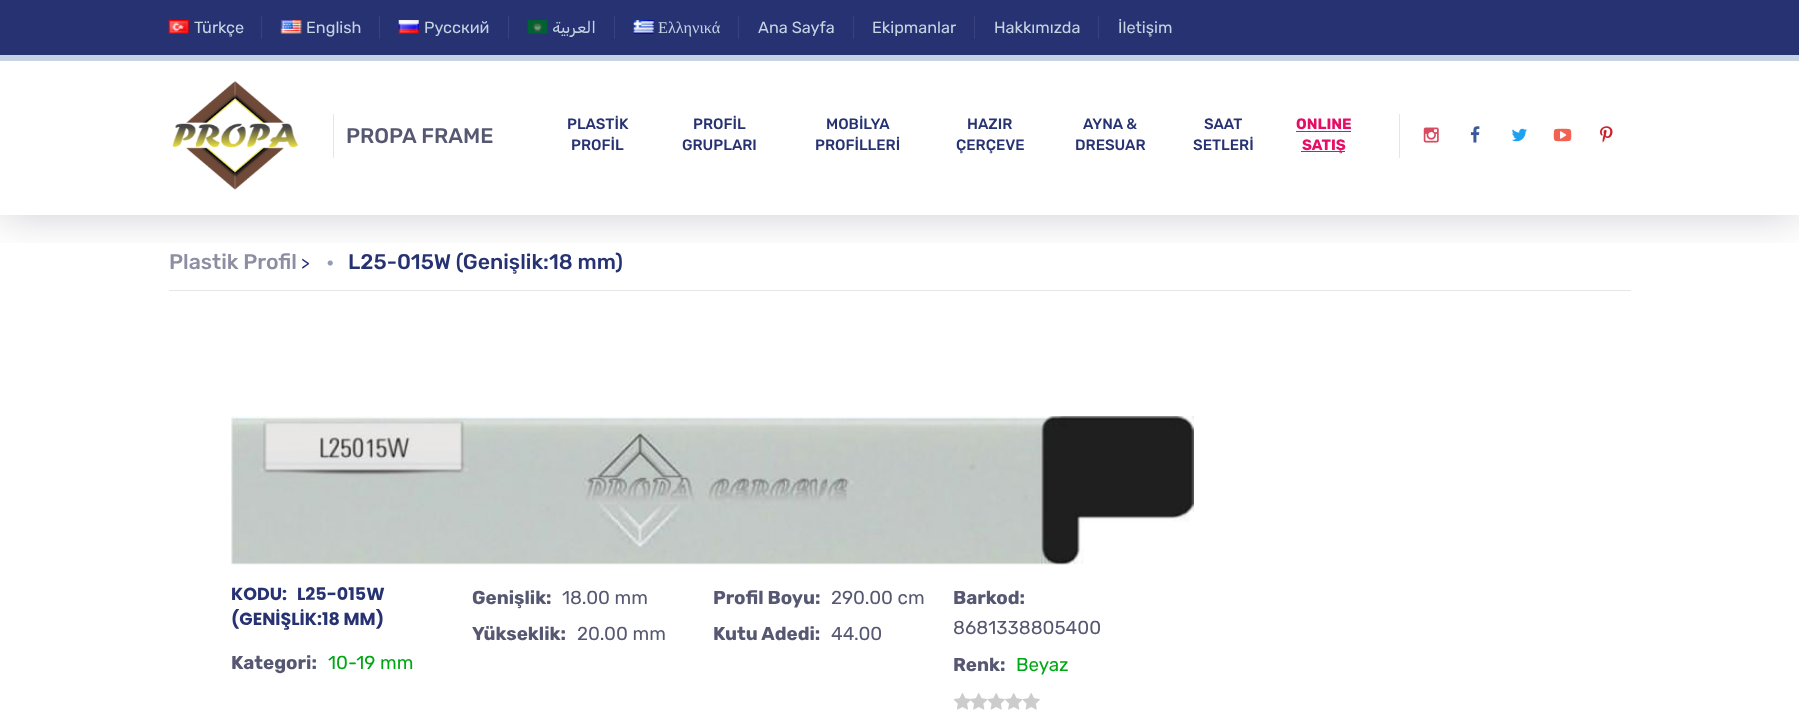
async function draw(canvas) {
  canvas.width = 1799
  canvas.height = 721
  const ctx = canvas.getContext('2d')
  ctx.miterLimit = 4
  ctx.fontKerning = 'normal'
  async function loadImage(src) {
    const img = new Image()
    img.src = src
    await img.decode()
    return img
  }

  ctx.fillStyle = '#fff'
  ctx.fillRect(0, 0, 1799, 721)
  ctx.save()
  ctx.beginPath()
  ctx.rect(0, 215, 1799, 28)
  ctx.clip()
  ctx.fillStyle = '#02062033'
  ctx.filter = 'blur(22px)'
  ctx.beginPath()
  ctx.rect(0, 55, 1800, 160)
  ctx.fill()
  ctx.filter = 'none'
  ctx.restore()
  ctx.fillStyle = '#273272'
  ctx.fillRect(0, 0, 1799, 55)
  ctx.drawImage(await loadImage('image0.png'), 168, 20, 21, 14)
  ctx.font = '16.25px Rubik'
  ctx.fillStyle = '#c6d3e3'
  ctx.fillText('Türkçe', 194, 33)
  ctx.fillStyle = '#39427e'
  ctx.fillRect(261, 16, 1, 23)
  ctx.drawImage(await loadImage('image1.png'), 280, 20, 22, 14)
  ctx.fillStyle = '#c6d3e3'
  ctx.fillText('English', 306, 33)
  ctx.fillStyle = '#39427e'
  ctx.fillRect(379, 16, 1, 23)
  ctx.drawImage(await loadImage('image2.png'), 398, 20, 21, 14)
  ctx.fillStyle = '#c6d3e3'
  ctx.fillText('Русский', 424, 33)
  ctx.fillStyle = '#39427e'
  ctx.fillRect(508, 16, 1, 23)
  ctx.drawImage(await loadImage('image3.png'), 526, 20, 22, 14)
  ctx.direction = 'rtl'
  ctx.fillStyle = '#c6d3e3'
  ctx.fillText('العربية', 596, 33)
  ctx.fillStyle = '#39427e'
  ctx.fillRect(614, 16, 1, 23)
  ctx.drawImage(await loadImage('image4.png'), 633, 20, 21, 14)
  ctx.direction = 'ltr'
  ctx.font = '16.25px Liberation Serif'
  ctx.fillStyle = '#c6d3e3'
  ctx.fillText('Ελληνικά', 658, 33)
  ctx.fillStyle = '#39427e'
  ctx.fillRect(738, 16, 1, 23)
  ctx.font = '16.25px Rubik'
  ctx.fillStyle = '#c6d3e3'
  ctx.fillText('Ana Sayfa', 758, 33)
  ctx.fillStyle = '#39427e'
  ctx.fillRect(853, 16, 1, 23)
  ctx.fillStyle = '#c6d3e3'
  ctx.fillText('Ekipmanlar', 872, 33)
  ctx.fillStyle = '#39427e'
  ctx.fillRect(974, 16, 1, 23)
  ctx.fillStyle = '#c6d3e3'
  ctx.fillText('Hakkımızda', 994, 33)
  ctx.fillStyle = '#39427e'
  ctx.fillRect(1098, 16, 1, 23)
  ctx.fillStyle = '#c6d3e3'
  ctx.fillText('İletişim', 1118, 33)
  ctx.fillRect(0, 55, 1799, 6)
  ctx.drawImage(await loadImage('image5.png'), 172, 81, 127, 109)
  ctx.fillStyle = '#e6e6e9'
  ctx.fillRect(333, 114, 1, 44)
  ctx.font = '500 21.25px Rubik'
  ctx.fillStyle = '#565872'
  ctx.fillText('PROPA FRAME', 346, 143)
  ctx.font = '500 15px Rubik'
  ctx.fillStyle = '#273272'
  ctx.fillText('PLASTİK', 567, 129)
  ctx.fillText('PROFİL', 571, 150)
  ctx.fillText('PROFİL', 693, 129)
  ctx.fillText('GRUPLARI', 682, 150)
  ctx.fillText('MOBİLYA', 826, 129)
  ctx.fillText('PROFİLLERİ', 815, 150)
  ctx.fillText('HAZIR', 967, 129)
  ctx.fillText('ÇERÇEVE', 956, 150)
  ctx.fillText('AYNA &', 1083, 129)
  ctx.fillText('DRESUAR', 1075, 150)
  ctx.fillText('SAAT', 1204, 129)
  ctx.fillText('SETLERİ', 1193, 150)
  ctx.font = 'bold 15px Rubik'
  ctx.fillStyle = '#e50d66'
  ctx.fillText('ONLINE', 1296, 129)
  ctx.fillRect(1296, 131, 55, 1)
  ctx.fillRect(1301, 151, 44, 1)
  ctx.fillText('SATIŞ', 1302, 150)
  ctx.fillStyle = '#e6e6e9'
  ctx.fillRect(1399, 114, 1, 44)
  ctx.drawImage(await loadImage('image6.png'), 1423, 127, 16, 16)
  ctx.drawImage(await loadImage('image7.png'), 1470, 126, 10, 17)
  ctx.drawImage(await loadImage('image8.png'), 1512, 128, 15, 14)
  ctx.drawImage(await loadImage('image9.png'), 1553, 128, 19, 14)
  ctx.drawImage(await loadImage('image10.png'), 1600, 126, 13, 17)
  ctx.fillRect(169, 290, 1462, 1)
  ctx.font = '500 21.25px Rubik'
  ctx.fillStyle = '#8d8ea3'
  ctx.fillText('Plastik Profil', 169, 269)
  ctx.font = '17.5px Rubik'
  ctx.fillStyle = '#273272'
  ctx.fillText('>', 301, 269)
  ctx.font = '500 22px Rubik'
  ctx.fillStyle = '#9399b9'
  ctx.fillText('•', 326, 270)
  ctx.font = '500 21.25px Rubik'
  ctx.fillStyle = '#273272'
  ctx.fillText('L25-015W (Genişlik:18 mm)', 348, 269)
  ctx.drawImage(await loadImage('image11.png'), 231, 416, 963, 149)
  ctx.font = 'bold 17.5px Poppins'
  ctx.fillText('KODU:', 231, 600)
  ctx.fillText('L25-015W', 297, 600)
  ctx.fillText('(GENİŞLİK:18 MM)', 231, 625)
  ctx.font = 'bold 18.75px Rubik'
  ctx.fillStyle = '#565872'
  ctx.fillText('Kategori:', 231, 669)
  ctx.font = '18.75px Rubik'
  ctx.fillStyle = '#00a914'
  ctx.fillText('10-19 mm', 328, 669)
  ctx.font = 'bold 18.75px Rubik'
  ctx.fillStyle = '#565872'
  ctx.fillText('Genişlik:', 472, 604)
  ctx.font = '18.75px Rubik'
  ctx.fillText('18.00 mm', 562, 604)
  ctx.font = 'bold 18.75px Rubik'
  ctx.fillText('Yükseklik:', 472, 640)
  ctx.font = '18.75px Rubik'
  ctx.fillText('20.00 mm', 577, 640)
  ctx.font = 'bold 18.75px Rubik'
  ctx.fillText('Profil Boyu:', 713, 604)
  ctx.font = '18.75px Rubik'
  ctx.fillText('290.00 cm', 831, 604)
  ctx.font = 'bold 18.75px Rubik'
  ctx.fillText('Kutu Adedi:', 713, 640)
  ctx.font = '18.75px Rubik'
  ctx.fillText('44.00', 831, 640)
  ctx.font = 'bold 18.75px Rubik'
  ctx.fillText('Barkod:', 953, 604)
  ctx.font = '18.75px Rubik'
  ctx.fillText('8681338805400', 953, 634)
  ctx.font = 'bold 18.75px Rubik'
  ctx.fillText('Renk:', 953, 671)
  ctx.font = '18.75px Rubik'
  ctx.fillStyle = '#00a914'
  ctx.fillText('Beyaz', 1016, 671)
  ctx.drawImage(await loadImage('image14.png'), 987, 693, 18, 17)
  ctx.drawImage(await loadImage('image13.png'), 970, 693, 18, 17)
  ctx.drawImage(await loadImage('image12.png'), 953, 693, 18, 17)
  ctx.drawImage(await loadImage('image14.png'), 1022, 693, 18, 17)
  ctx.drawImage(await loadImage('image13.png'), 1005, 693, 18, 17)
}

draw(document.querySelector('canvas'))
